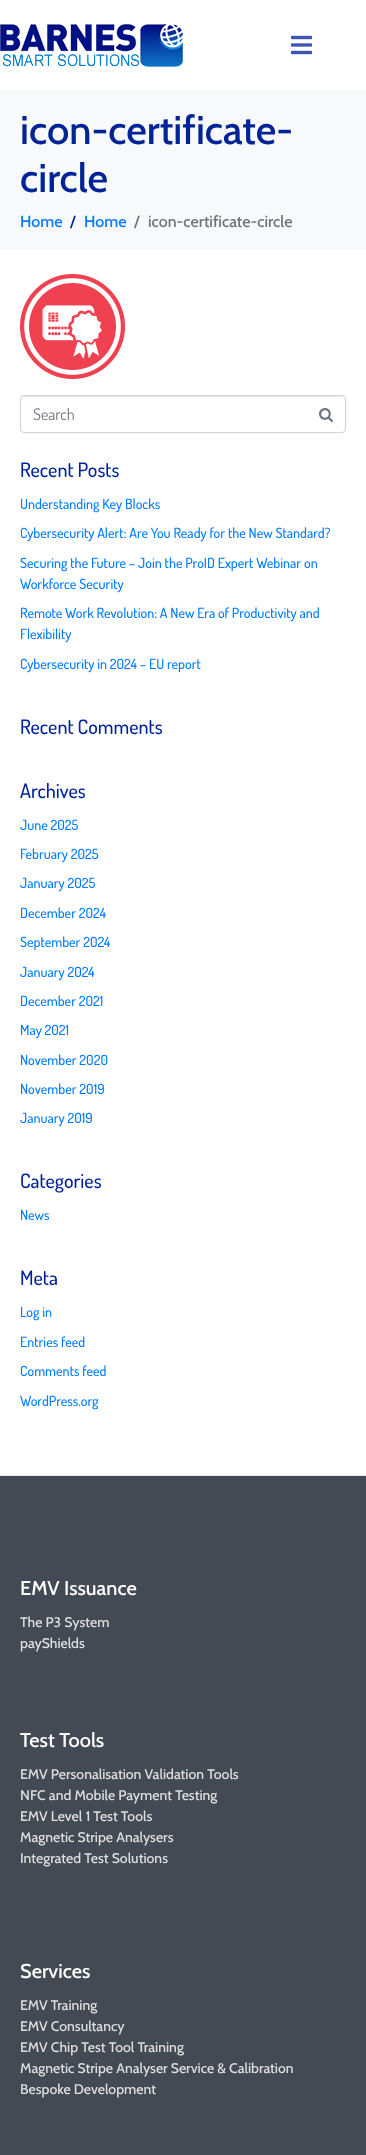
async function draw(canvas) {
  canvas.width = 366
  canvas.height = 2155
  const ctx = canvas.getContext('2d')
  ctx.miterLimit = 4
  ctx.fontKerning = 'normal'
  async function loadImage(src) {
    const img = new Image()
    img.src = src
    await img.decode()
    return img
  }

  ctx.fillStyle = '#fff'
  ctx.fillRect(0, 0, 366, 2155)
  ctx.drawImage(await loadImage('image0.png'), 0, 24, 183, 43)
  ctx.drawImage(await loadImage('image1.png'), 291, 35, 21, 20)
  ctx.fillStyle = '#f8f9fa'
  ctx.fillRect(0, 90, 366, 160)
  ctx.font = '500 40px Cabin'
  ctx.fillStyle = '#012398'
  ctx.fillText('icon-certificate-', 20, 144)
  ctx.fillText('circle', 20, 192)
  ctx.font = '500 16px Cabin'
  ctx.fillStyle = '#007bff'
  ctx.fillText('Home', 20, 227)
  ctx.fillStyle = '#012398'
  ctx.fillText('/', 70, 227)
  ctx.fillStyle = '#007bff'
  ctx.fillText('Home', 84, 227)
  ctx.fillStyle = '#6c757d'
  ctx.fillText('/', 134, 227)
  ctx.fillText('icon-certificate-circle', 148, 227)
  ctx.drawImage(await loadImage('image2.png'), 20, 274, 105, 105)
  ctx.fillStyle = '#ececec'
  ctx.beginPath()
  ctx.moveTo(24, 397)
  ctx.lineTo(342, 397)
  ctx.bezierCurveTo(344, 397, 345, 398, 345, 400)
  ctx.bezierCurveTo(345, 398, 344, 396, 342, 396)
  ctx.lineTo(24, 396)
  ctx.bezierCurveTo(22, 396, 21, 398, 21, 400)
  ctx.bezierCurveTo(21, 398, 22, 397, 24, 397)
  ctx.closePath()
  ctx.fill()
  ctx.beginPath()
  ctx.roundRect(20.5, 395.5, 325, 37, 3.5)
  ctx.strokeStyle = '#ced4da'
  ctx.stroke()
  ctx.font = '16px Dosis'
  ctx.fillStyle = '#6c757d'
  ctx.fillText('Search', 33, 420)
  ctx.drawImage(await loadImage('image3.png'), 319, 408, 14, 15)
  ctx.font = '500 20px Dosis'
  ctx.fillStyle = '#012398'
  ctx.fillText('Recent Posts', 20, 477)
  ctx.font = '500 14px Dosis'
  ctx.fillStyle = '#007bff'
  ctx.fillText('Understanding Key Blocks', 20, 509)
  ctx.fillText('Cybersecurity Alert: Are You Ready for the New Standard?', 20, 538)
  ctx.fillText('Securing the Future – Join the ProID Expert Webinar on', 20, 568)
  ctx.fillText('Workforce Security', 20, 589)
  ctx.fillText('Remote Work Revolution: A New Era of Productivity and', 20, 618)
  ctx.fillText('Flexibility', 20, 639)
  ctx.fillText('Cybersecurity in 2024 – EU report', 20, 669)
  ctx.font = '500 20px Dosis'
  ctx.fillStyle = '#012398'
  ctx.fillText('Recent Comments', 20, 734)
  ctx.fillText('Archives', 20, 798)
  ctx.font = '500 14px Dosis'
  ctx.fillStyle = '#007bff'
  ctx.fillText('June 2025', 20, 830)
  ctx.fillText('February 2025', 20, 859)
  ctx.fillText('January 2025', 20, 888)
  ctx.fillText('December 2024', 20, 918)
  ctx.fillText('September 2024', 20, 947)
  ctx.fillText('January 2024', 20, 977)
  ctx.fillText('December 2021', 20, 1006)
  ctx.fillText('May 2021', 20, 1035)
  ctx.fillText('November 2020', 20, 1065)
  ctx.fillText('November 2019', 20, 1094)
  ctx.fillText('January 2019', 20, 1123)
  ctx.font = '500 20px Dosis'
  ctx.fillStyle = '#012398'
  ctx.fillText('Categories', 20, 1188)
  ctx.font = '500 14px Dosis'
  ctx.fillStyle = '#007bff'
  ctx.fillText('News', 20, 1220)
  ctx.font = '500 20px Dosis'
  ctx.fillStyle = '#012398'
  ctx.fillText('Meta', 20, 1285)
  ctx.font = '500 14px Dosis'
  ctx.fillStyle = '#007bff'
  ctx.fillText('Log in', 20, 1317)
  ctx.fillText('Entries feed', 20, 1347)
  ctx.fillText('Comments feed', 20, 1376)
  ctx.fillText('WordPress.org', 20, 1406)
  ctx.fillStyle = '#434a54'
  ctx.fillRect(0, 1476, 366, 679)
  ctx.fillStyle = '#e9ecef'
  ctx.fillRect(0, 1475, 366, 1)
  ctx.font = '500 20px Cabin'
  ctx.fillStyle = '#fff'
  ctx.fillText('EMV Issuance', 20, 1595)
  ctx.font = '500 14px Cabin'
  ctx.fillStyle = '#ddd'
  ctx.fillText('The P3 System', 20, 1627)
  ctx.fillText('payShields', 20, 1648)
  ctx.font = '500 20px Cabin'
  ctx.fillStyle = '#fff'
  ctx.fillText('Test Tools', 20, 1747)
  ctx.font = '500 14px Cabin'
  ctx.fillStyle = '#ddd'
  ctx.fillText('EMV Personalisation Validation Tools', 20, 1779)
  ctx.fillText('NFC and Mobile Payment Testing', 20, 1800)
  ctx.fillText('EMV Level 1 Test Tools', 20, 1821)
  ctx.fillText('Magnetic Stripe Analysers', 20, 1842)
  ctx.fillText('Integrated Test Solutions', 20, 1863)
  ctx.font = '500 20px Cabin'
  ctx.fillStyle = '#fff'
  ctx.fillText('Services', 20, 1978)
  ctx.font = '500 14px Cabin'
  ctx.fillStyle = '#ddd'
  ctx.fillText('EMV Training', 20, 2010)
  ctx.fillText('EMV Consultancy', 20, 2031)
  ctx.fillText('EMV Chip Test Tool Training', 20, 2052)
  ctx.fillText('Magnetic Stripe Analyser Service & Calibration', 20, 2073)
  ctx.fillText('Bespoke Development', 20, 2094)
}

draw(document.querySelector('canvas'))
